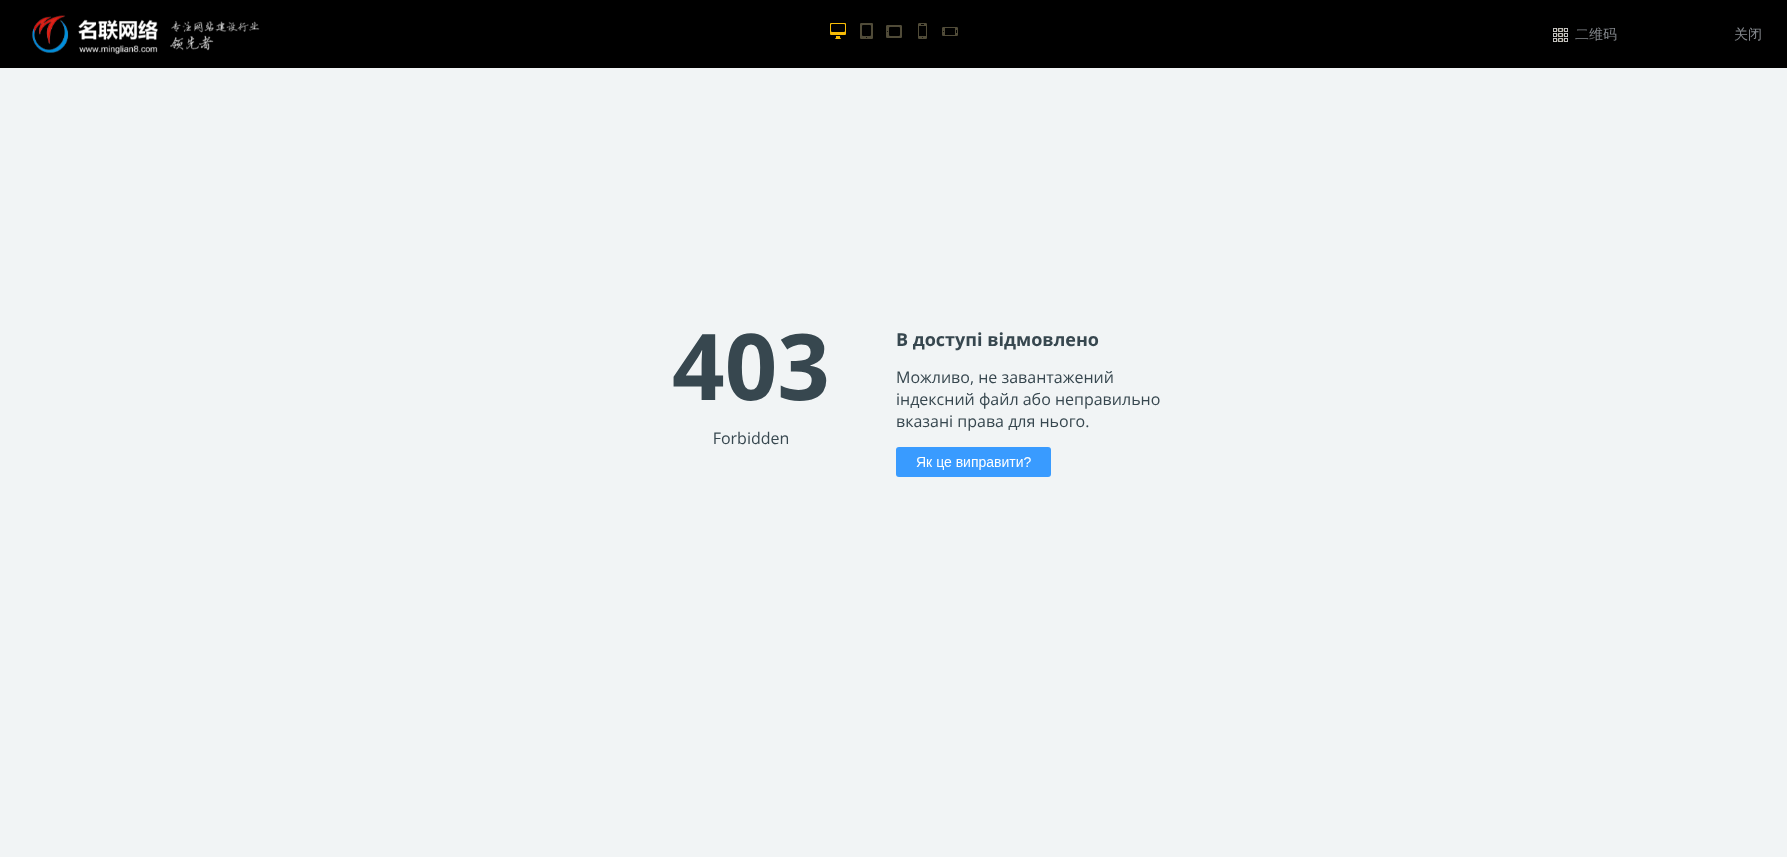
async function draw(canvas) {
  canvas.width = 1787
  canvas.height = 857
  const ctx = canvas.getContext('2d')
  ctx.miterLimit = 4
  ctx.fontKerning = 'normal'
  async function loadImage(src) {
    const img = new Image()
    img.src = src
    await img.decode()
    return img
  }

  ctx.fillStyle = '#fff'
  ctx.fillRect(0, 0, 1787, 857)
  ctx.fillStyle = '#000'
  ctx.fillRect(0, 0, 1787, 68)
  ctx.drawImage(await loadImage('image0.png'), 32, 15, 228, 40)
  ctx.drawImage(await loadImage('image1.png'), 830, 23, 16, 16)
  ctx.drawImage(await loadImage('image2.png'), 860, 23, 13, 16)
  ctx.drawImage(await loadImage('image3.png'), 886, 25, 16, 13)
  ctx.drawImage(await loadImage('image4.png'), 918, 23, 9, 16)
  ctx.drawImage(await loadImage('image5.png'), 942, 27, 16, 9)
  ctx.drawImage(await loadImage('image6.png'), 1553, 28, 15, 14)
  ctx.font = '500 14px WenQuanYi Zen Hei'
  ctx.fillStyle = '#84888d'
  ctx.fillText('二维码', 1575, 39)
  ctx.fillText('关闭', 1734, 39)
  ctx.drawImage(await loadImage('image7.png'), 0, 68, 1787, 789)
}

draw(document.querySelector('canvas'))
